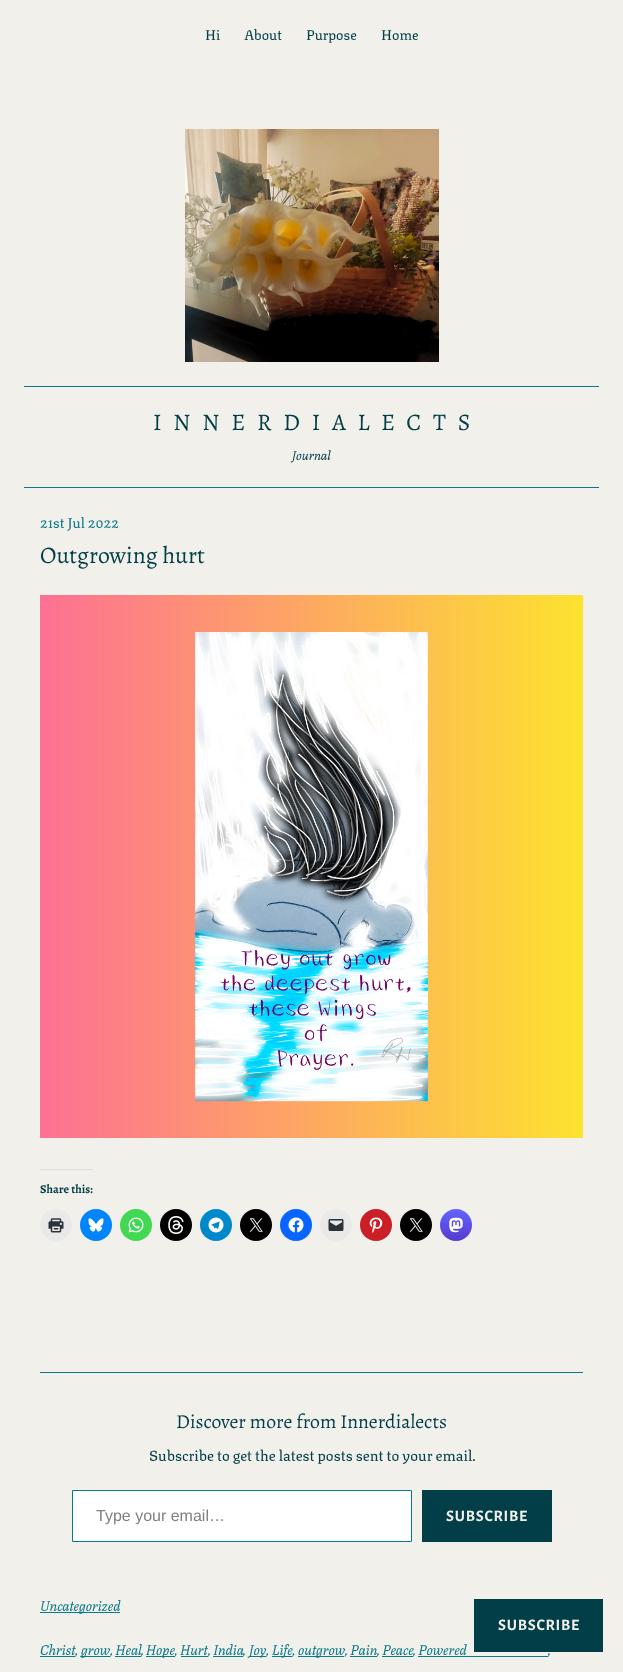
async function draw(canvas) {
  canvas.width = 623
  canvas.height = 1672
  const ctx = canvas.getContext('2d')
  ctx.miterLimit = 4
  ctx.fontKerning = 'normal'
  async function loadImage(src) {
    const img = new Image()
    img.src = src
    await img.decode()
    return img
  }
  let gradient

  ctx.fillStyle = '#f2f0ea'
  ctx.fillRect(0, 0, 623, 1672)
  ctx.font = '13.75px Texturina'
  ctx.fillStyle = '#023e47'
  ctx.fillText('Hi', 205, 40)
  ctx.fillText('About', 244, 40)
  ctx.fillText('Purpose', 306, 40)
  ctx.fillText('Home', 381, 40)
  ctx.drawImage(await loadImage('image0.png'), 185, 129, 254, 233)
  ctx.fillStyle = '#097889'
  ctx.fillRect(24, 386, 575, 1)
  ctx.letterSpacing = '11.8px'
  ctx.font = '23.75px Alegreya'
  ctx.fillStyle = '#023e47'
  ctx.fillText('INNERDIALECTS', 153, 430)
  ctx.letterSpacing = '0px'
  ctx.font = 'italic 12.5px Texturina'
  ctx.fillText('Journal', 292, 460)
  ctx.fillStyle = '#097889'
  ctx.fillRect(24, 487, 575, 1)
  ctx.font = '13.75px Texturina'
  ctx.fillText('21st Jul 2022', 40, 528)
  ctx.font = '23.75px Alegreya'
  ctx.fillStyle = '#023e47'
  ctx.fillText('Outgrowing hurt', 40, 563)
  ctx.drawImage(await loadImage('image1.png'), 40, 595, 543, 543)
  ctx.fillStyle = '#dcdcde'
  ctx.fillRect(40, 1169, 53, 1)
  ctx.font = 'bold 12px Alegreya'
  ctx.fillStyle = '#023e47'
  ctx.fillText('Share this:', 40, 1193)
  ctx.fillStyle = '#e9e9e9'
  ctx.beginPath()
  ctx.arc(56, 1225, 16, 0, 2 * Math.PI)
  ctx.fill()
  ctx.drawImage(await loadImage('image2.png'), 48, 1218, 16, 15)
  ctx.fillStyle = '#0085ff'
  ctx.beginPath()
  ctx.arc(96, 1225, 16, 0, 2 * Math.PI)
  ctx.fill()
  ctx.drawImage(await loadImage('image3.png'), 88, 1218, 16, 14)
  ctx.fillStyle = '#43d854'
  ctx.beginPath()
  ctx.arc(136, 1225, 16, 0, 2 * Math.PI)
  ctx.fill()
  ctx.drawImage(await loadImage('image4.png'), 128, 1217, 16, 16)
  ctx.fillStyle = '#000'
  ctx.beginPath()
  ctx.arc(176, 1225, 16, 0, 2 * Math.PI)
  ctx.fill()
  ctx.drawImage(await loadImage('image5.png'), 168, 1216, 16, 18)
  ctx.fillStyle = '#08c'
  ctx.beginPath()
  ctx.arc(216, 1225, 16, 0, 2 * Math.PI)
  ctx.fill()
  ctx.drawImage(await loadImage('image6.png'), 208, 1217, 16, 16)
  ctx.fillStyle = '#000'
  ctx.beginPath()
  ctx.arc(256, 1225, 16, 0, 2 * Math.PI)
  ctx.fill()
  ctx.drawImage(await loadImage('image7.png'), 249, 1218, 14, 14)
  ctx.fillStyle = '#0866ff'
  ctx.beginPath()
  ctx.arc(296, 1225, 16, 0, 2 * Math.PI)
  ctx.fill()
  ctx.drawImage(await loadImage('image8.png'), 288, 1217, 16, 16)
  ctx.fillStyle = '#e9e9e9'
  ctx.beginPath()
  ctx.arc(336, 1225, 16, 0, 2 * Math.PI)
  ctx.fill()
  ctx.drawImage(await loadImage('image9.png'), 328, 1219, 16, 12)
  ctx.fillStyle = '#ca1f27'
  ctx.beginPath()
  ctx.arc(376, 1225, 16, 0, 2 * Math.PI)
  ctx.fill()
  ctx.drawImage(await loadImage('image10.png'), 369, 1217, 14, 16)
  ctx.fillStyle = '#000'
  ctx.beginPath()
  ctx.arc(416, 1225, 16, 0, 2 * Math.PI)
  ctx.fill()
  ctx.drawImage(await loadImage('image7.png'), 409, 1218, 14, 14)
  gradient = ctx.createLinearGradient(456, 1241, 456, 1209)
  gradient.addColorStop(0, '#563acc')
  gradient.addColorStop(1, '#6364ff')
  ctx.fillStyle = gradient
  ctx.beginPath()
  ctx.arc(456, 1225, 16, 0, 2 * Math.PI)
  ctx.fill()
  ctx.drawImage(await loadImage('image11.png'), 449, 1217, 14, 16)
  ctx.fillStyle = '#097889'
  ctx.fillRect(40, 1372, 543, 1)
  ctx.font = '19.75px Alegreya'
  ctx.fillStyle = '#023e47'
  ctx.fillText('Discover more from Innerdialects', 176, 1428)
  ctx.font = '14.5px Texturina'
  ctx.fillText('Subscribe to get the latest posts sent to your email.', 149, 1461)
  ctx.fillStyle = '#fff'
  ctx.beginPath()
  ctx.rect(72.5, 1490.5, 339, 51)
  ctx.fill()
  ctx.strokeStyle = '#097889'
  ctx.stroke()
  ctx.font = '16px Liberation Sans'
  ctx.fillStyle = '#808080'
  ctx.fillText('Type your email…', 96, 1521)
  ctx.fillStyle = '#023e47'
  ctx.fillRect(422, 1490, 130, 52)
  ctx.letterSpacing = '0.75px'
  ctx.font = 'bold 16px Alegreya Sans'
  ctx.fillStyle = '#f2f0ea'
  ctx.fillText('SUBSCRIBE', 446, 1521)
  ctx.fillStyle = '#097889'
  ctx.fillRect(40, 1612, 80, 1)
  ctx.letterSpacing = '0px'
  ctx.font = 'italic 13.75px Texturina'
  ctx.fillText('Uncategorized', 40, 1611)
  ctx.fillRect(40, 1656, 35, 1)
  ctx.fillText('Christ,', 40, 1655)
  ctx.fillRect(81, 1656, 29, 1)
  ctx.fillText('grow, Heal', 81, 1655)
  ctx.fillRect(146, 1656, 29, 1)
  ctx.fillText('Hope, Hurt', 146, 1655)
  ctx.fillRect(181, 1656, 27, 1)
  ctx.fillText(', India', 208, 1655)
  ctx.fillRect(249, 1656, 17, 1)
  ctx.fillText('Joy,', 249, 1655)
  ctx.fillRect(272, 1656, 20, 1)
  ctx.fillText('Life,', 272, 1655)
  ctx.fillRect(298, 1656, 46, 1)
  ctx.fillText('outgrow, Pain', 298, 1655)
  ctx.fillRect(350, 1656, 27, 1)
  ctx.fillText(', Peace', 377, 1655)
  ctx.fillRect(382, 1656, 31, 1)
  ctx.fillText(', Powered', 413, 1655)
  ctx.fillRect(115, 1656, 26, 1)
  ctx.fillText(',', 141, 1655)
  ctx.fillRect(213, 1656, 30, 1)
  ctx.fillText(',', 243, 1655)
  ctx.fillRect(418, 1656, 130, 1)
  ctx.fillText(',', 548, 1655)
  ctx.fillStyle = '#023e47'
  ctx.fillRect(474, 1599, 129, 53)
  ctx.letterSpacing = '0.75px'
  ctx.font = 'bold 16px Alegreya Sans'
  ctx.fillStyle = '#f2f0ea'
  ctx.fillText('SUBSCRIBE', 498, 1630)
}

draw(document.querySelector('canvas'))
